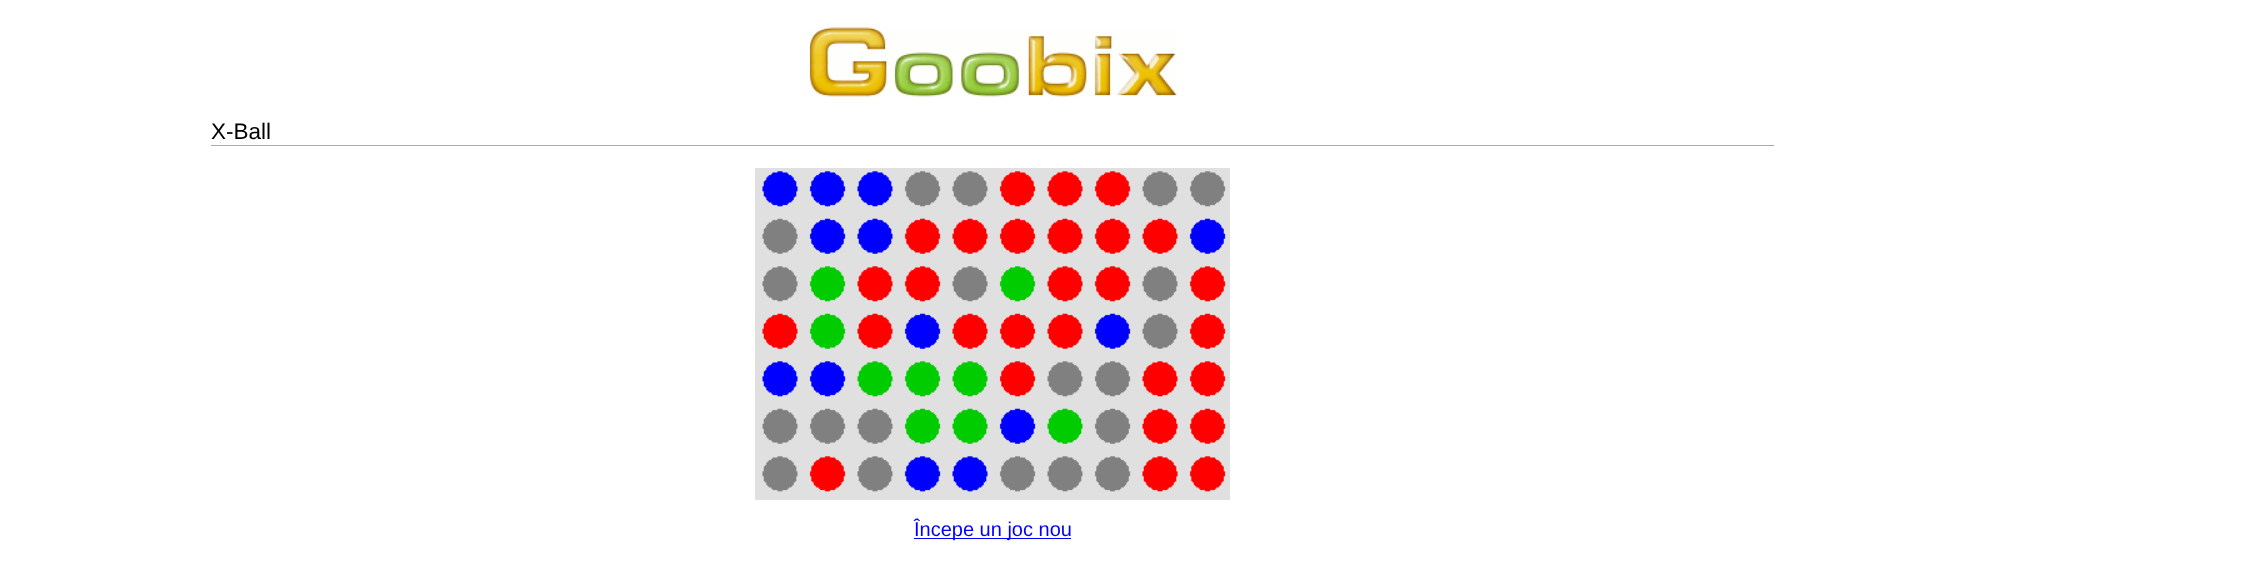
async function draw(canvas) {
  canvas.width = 2257
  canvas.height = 575
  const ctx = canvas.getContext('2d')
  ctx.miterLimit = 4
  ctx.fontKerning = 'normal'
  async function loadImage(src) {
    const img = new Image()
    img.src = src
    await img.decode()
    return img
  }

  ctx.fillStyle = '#fff'
  ctx.fillRect(0, 0, 2257, 575)
  ctx.drawImage(await loadImage('image0.png'), 809, 27, 368, 70)
  ctx.fillStyle = '#aaa'
  ctx.fillRect(211, 145, 1563, 1)
  ctx.font = '22.5px Liberation Sans'
  ctx.fillStyle = '#000'
  ctx.fillText('X-Ball', 211, 139)
  ctx.fillStyle = '#e0e0e0'
  ctx.fillRect(755, 168, 475, 332)
  ctx.drawImage(await loadImage('image1.png'), 762, 171, 36, 36)
  ctx.drawImage(await loadImage('image2.png'), 809, 171, 37, 36)
  ctx.drawImage(await loadImage('image1.png'), 857, 171, 36, 36)
  ctx.drawImage(await loadImage('image3.png'), 904, 171, 37, 36)
  ctx.drawImage(await loadImage('image4.png'), 952, 171, 36, 36)
  ctx.drawImage(await loadImage('image5.png'), 999, 171, 37, 36)
  ctx.drawImage(await loadImage('image6.png'), 1047, 171, 36, 36)
  ctx.drawImage(await loadImage('image7.png'), 1094, 171, 37, 36)
  ctx.drawImage(await loadImage('image4.png'), 1142, 171, 36, 36)
  ctx.drawImage(await loadImage('image8.png'), 1189, 171, 37, 36)
  ctx.drawImage(await loadImage('image9.png'), 762, 218, 36, 36)
  ctx.drawImage(await loadImage('image10.png'), 809, 218, 37, 36)
  ctx.drawImage(await loadImage('image11.png'), 857, 218, 36, 36)
  ctx.drawImage(await loadImage('image12.png'), 904, 218, 37, 36)
  ctx.drawImage(await loadImage('image13.png'), 952, 218, 36, 36)
  ctx.drawImage(await loadImage('image14.png'), 999, 218, 37, 36)
  ctx.drawImage(await loadImage('image13.png'), 1047, 218, 36, 36)
  ctx.drawImage(await loadImage('image12.png'), 1094, 218, 37, 36)
  ctx.drawImage(await loadImage('image13.png'), 1142, 218, 36, 36)
  ctx.drawImage(await loadImage('image15.png'), 1189, 218, 37, 36)
  ctx.drawImage(await loadImage('image4.png'), 762, 266, 36, 36)
  ctx.drawImage(await loadImage('image16.png'), 809, 266, 37, 36)
  ctx.drawImage(await loadImage('image6.png'), 857, 266, 36, 36)
  ctx.drawImage(await loadImage('image7.png'), 904, 266, 37, 36)
  ctx.drawImage(await loadImage('image4.png'), 952, 266, 36, 36)
  ctx.drawImage(await loadImage('image17.png'), 999, 266, 37, 36)
  ctx.drawImage(await loadImage('image6.png'), 1047, 266, 36, 36)
  ctx.drawImage(await loadImage('image7.png'), 1094, 266, 37, 36)
  ctx.drawImage(await loadImage('image4.png'), 1142, 266, 36, 36)
  ctx.drawImage(await loadImage('image18.png'), 1189, 266, 37, 36)
  ctx.drawImage(await loadImage('image13.png'), 762, 313, 36, 36)
  ctx.drawImage(await loadImage('image19.png'), 809, 313, 37, 36)
  ctx.drawImage(await loadImage('image13.png'), 857, 313, 36, 36)
  ctx.drawImage(await loadImage('image10.png'), 904, 313, 37, 36)
  ctx.drawImage(await loadImage('image13.png'), 952, 313, 36, 36)
  ctx.drawImage(await loadImage('image14.png'), 999, 313, 37, 36)
  ctx.drawImage(await loadImage('image13.png'), 1047, 313, 36, 36)
  ctx.drawImage(await loadImage('image10.png'), 1094, 313, 37, 36)
  ctx.drawImage(await loadImage('image9.png'), 1142, 313, 36, 36)
  ctx.drawImage(await loadImage('image20.png'), 1189, 313, 37, 36)
  ctx.drawImage(await loadImage('image1.png'), 762, 361, 36, 36)
  ctx.drawImage(await loadImage('image2.png'), 809, 361, 37, 36)
  ctx.drawImage(await loadImage('image21.png'), 857, 361, 36, 36)
  ctx.drawImage(await loadImage('image16.png'), 904, 361, 37, 36)
  ctx.drawImage(await loadImage('image21.png'), 952, 361, 36, 36)
  ctx.drawImage(await loadImage('image5.png'), 999, 361, 37, 36)
  ctx.drawImage(await loadImage('image4.png'), 1047, 361, 36, 36)
  ctx.drawImage(await loadImage('image3.png'), 1094, 361, 37, 36)
  ctx.drawImage(await loadImage('image6.png'), 1142, 361, 36, 36)
  ctx.drawImage(await loadImage('image18.png'), 1189, 361, 37, 36)
  ctx.drawImage(await loadImage('image9.png'), 762, 408, 36, 36)
  ctx.drawImage(await loadImage('image22.png'), 809, 408, 37, 36)
  ctx.drawImage(await loadImage('image9.png'), 857, 408, 36, 36)
  ctx.drawImage(await loadImage('image19.png'), 904, 408, 37, 36)
  ctx.drawImage(await loadImage('image23.png'), 952, 408, 36, 36)
  ctx.drawImage(await loadImage('image24.png'), 999, 408, 37, 36)
  ctx.drawImage(await loadImage('image23.png'), 1047, 408, 36, 36)
  ctx.drawImage(await loadImage('image22.png'), 1094, 408, 37, 36)
  ctx.drawImage(await loadImage('image13.png'), 1142, 408, 36, 36)
  ctx.drawImage(await loadImage('image20.png'), 1189, 408, 37, 36)
  ctx.drawImage(await loadImage('image4.png'), 762, 456, 36, 36)
  ctx.drawImage(await loadImage('image7.png'), 809, 456, 37, 36)
  ctx.drawImage(await loadImage('image4.png'), 857, 456, 36, 36)
  ctx.drawImage(await loadImage('image2.png'), 904, 456, 37, 36)
  ctx.drawImage(await loadImage('image1.png'), 952, 456, 36, 36)
  ctx.drawImage(await loadImage('image25.png'), 999, 456, 37, 36)
  ctx.drawImage(await loadImage('image4.png'), 1047, 456, 36, 36)
  ctx.drawImage(await loadImage('image3.png'), 1094, 456, 37, 36)
  ctx.drawImage(await loadImage('image6.png'), 1142, 456, 36, 36)
  ctx.drawImage(await loadImage('image18.png'), 1189, 456, 37, 36)
  ctx.fillStyle = '#00f'
  ctx.fillRect(914, 538, 157, 1)
  ctx.font = '20px Liberation Sans'
  ctx.fillText('Începe un joc nou', 914, 536)
}

draw(document.querySelector('canvas'))
